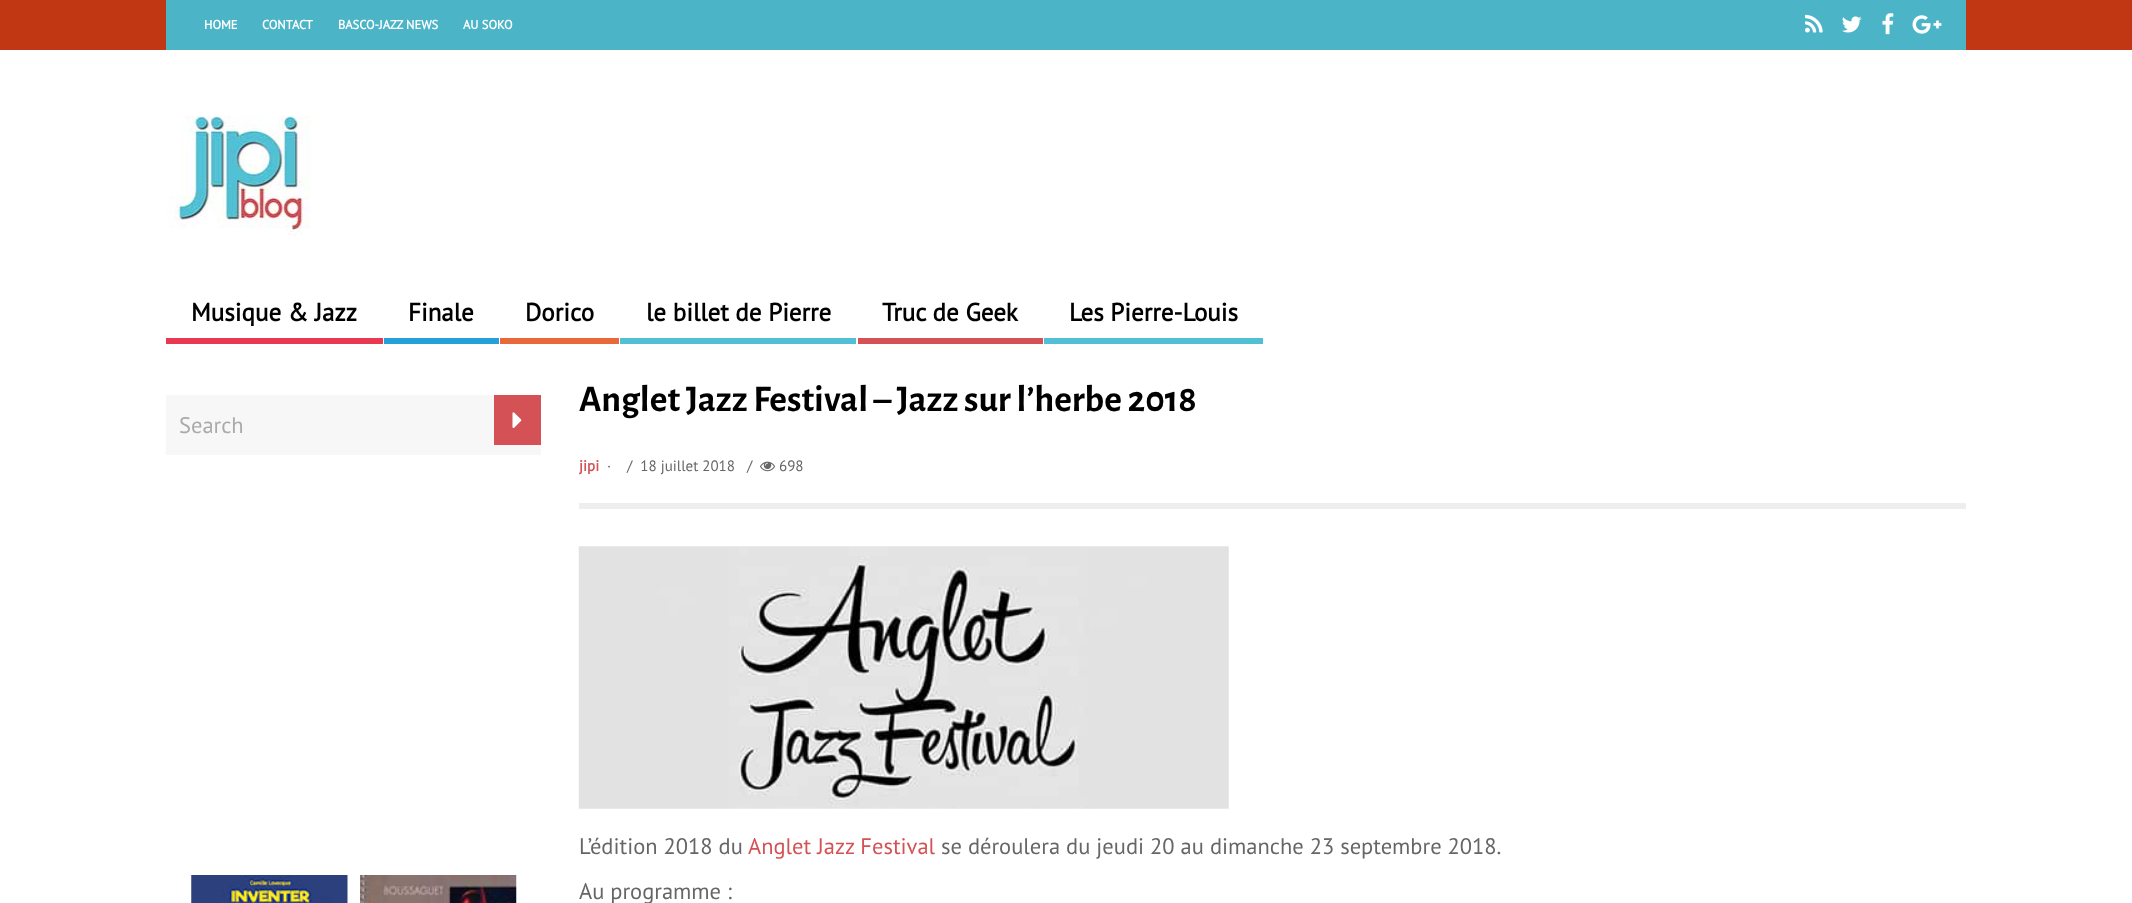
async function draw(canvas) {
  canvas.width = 2132
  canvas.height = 903
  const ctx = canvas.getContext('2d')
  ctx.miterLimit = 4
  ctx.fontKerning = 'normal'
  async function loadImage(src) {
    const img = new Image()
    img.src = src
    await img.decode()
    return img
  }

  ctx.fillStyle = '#fff'
  ctx.fillRect(0, 0, 2132, 903)
  ctx.fillStyle = '#c13613'
  ctx.fillRect(0, 0, 2132, 50)
  ctx.fillStyle = '#4cb4c7'
  ctx.fillRect(166, 0, 1800, 50)
  ctx.font = 'bold 12.5px PT Sans'
  ctx.fillStyle = '#fff'
  ctx.fillText('HOME', 204, 29)
  ctx.fillText('CONTACT', 262, 29)
  ctx.fillText('BASCO-JAZZ NEWS', 338, 29)
  ctx.fillText('AU SOKO', 463, 29)
  ctx.drawImage(await loadImage('image0.png'), 1805, 14, 18, 19)
  ctx.drawImage(await loadImage('image1.png'), 1842, 16, 20, 17)
  ctx.drawImage(await loadImage('image2.png'), 1882, 13, 12, 22)
  ctx.drawImage(await loadImage('image3.png'), 1912, 15, 30, 19)
  ctx.drawImage(await loadImage('image4.png'), 166, 115, 145, 121)
  ctx.fillStyle = '#e93952'
  ctx.fillRect(166, 338, 217, 6)
  ctx.font = 'bold 25px PT Sans'
  ctx.fillStyle = '#000'
  ctx.fillText('Musique & Jazz', 191, 321)
  ctx.fillStyle = '#26a0d8'
  ctx.fillRect(384, 338, 115, 6)
  ctx.fillStyle = '#000'
  ctx.fillText('Finale', 408, 321)
  ctx.fillStyle = '#e96739'
  ctx.fillRect(500, 338, 119, 6)
  ctx.fillStyle = '#000'
  ctx.fillText('Dorico', 525, 321)
  ctx.fillStyle = '#52c0d4'
  ctx.fillRect(620, 338, 236, 6)
  ctx.fillStyle = '#000'
  ctx.fillText('le billet de Pierre', 646, 321)
  ctx.fillStyle = '#d45255'
  ctx.fillRect(858, 338, 185, 6)
  ctx.fillStyle = '#000'
  ctx.fillText('Truc de Geek', 882, 321)
  ctx.fillStyle = '#52c0d4'
  ctx.fillRect(1044, 338, 219, 6)
  ctx.fillStyle = '#000'
  ctx.fillText('Les Pierre-Louis', 1069, 321)
  ctx.fillStyle = '#f7f7f7'
  ctx.fillRect(166, 395, 375, 60)
  ctx.font = '22.5px PT Sans'
  ctx.fillStyle = '#aaa'
  ctx.fillText('Search', 179, 433)
  ctx.fillStyle = '#d45255'
  ctx.fillRect(494, 395, 47, 50)
  ctx.drawImage(await loadImage('image5.png'), 512, 412, 10, 16)
  ctx.drawImage(await loadImage('image6.png'), 191, 875, 157, 28)
  ctx.drawImage(await loadImage('image7.png'), 360, 875, 157, 28)
  ctx.font = 'bold 37.5px Alegreya Sans'
  ctx.fillStyle = '#000'
  ctx.fillText('Anglet Jazz Festival – Jazz sur l’herbe 2018', 579, 411)
  ctx.fillStyle = '#eee'
  ctx.fillRect(579, 503, 1387, 6)
  ctx.font = 'bold 15px PT Sans'
  ctx.fillStyle = '#d45255'
  ctx.fillText('jipi', 579, 471)
  ctx.font = '15px PT Sans'
  ctx.fillStyle = '#666'
  ctx.fillText('·', 607, 471)
  ctx.fillText('/  18 juillet 2018   /', 627, 471)
  ctx.drawImage(await loadImage('image8.png'), 760, 461, 15, 11)
  ctx.fillText('698', 779, 471)
  ctx.drawImage(await loadImage('image9.png'), 578, 546, 651, 263)
  ctx.font = '22.5px PT Sans'
  ctx.fillText('L’édition 2018 du', 579, 854)
  ctx.fillStyle = '#d45255'
  ctx.fillText('Anglet Jazz Festival', 748, 854)
  ctx.fillStyle = '#666'
  ctx.fillText('se déroulera du jeudi 20 au dimanche 23 septembre 2018.', 941, 854)
  ctx.fillText('Au programme :', 579, 899)
}

draw(document.querySelector('canvas'))
